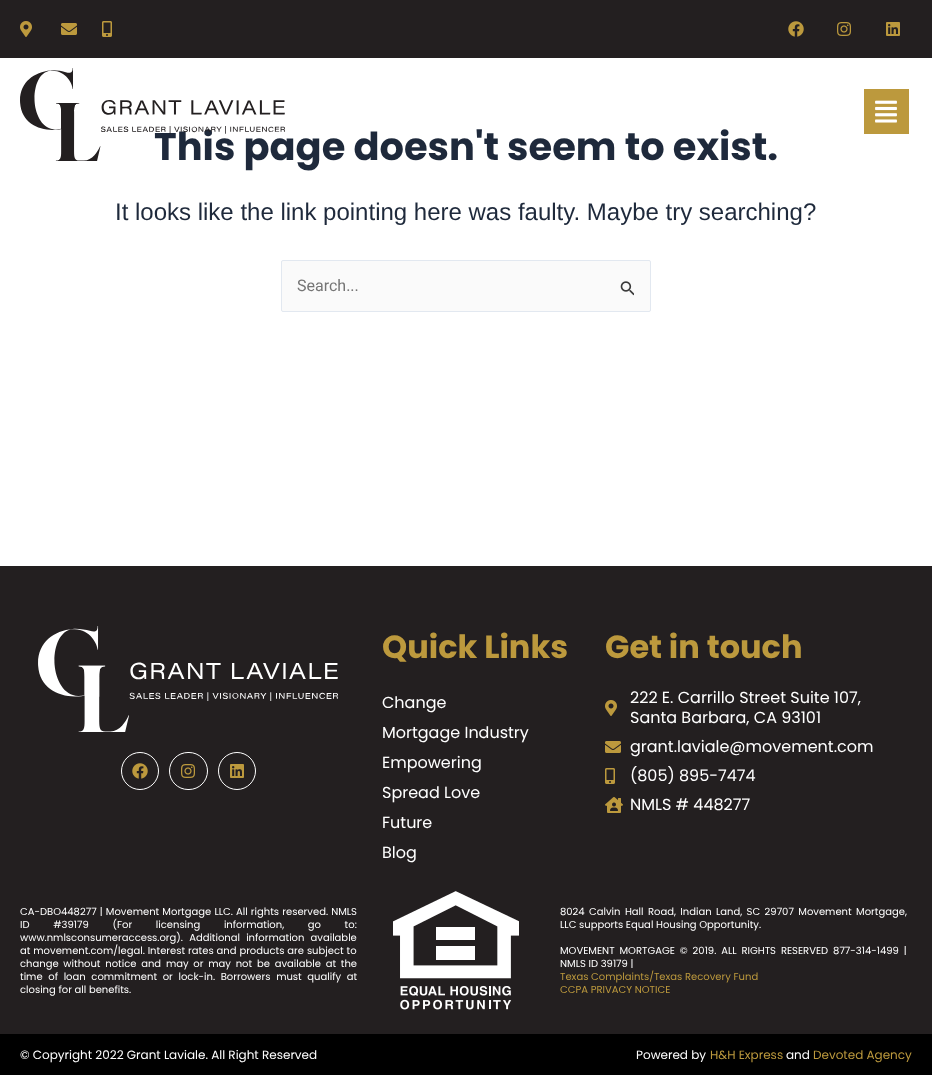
async function draw(canvas) {
  canvas.width = 932
  canvas.height = 1075
  const ctx = canvas.getContext('2d')
  ctx.miterLimit = 4
  ctx.fontKerning = 'normal'
  async function loadImage(src) {
    const img = new Image()
    img.src = src
    await img.decode()
    return img
  }

  ctx.fillStyle = '#fff'
  ctx.fillRect(0, 0, 932, 1075)
  ctx.fillStyle = '#231f20'
  ctx.fillRect(0, 0, 932, 58)
  ctx.drawImage(await loadImage('image0.png'), 20, 21, 12, 16)
  ctx.drawImage(await loadImage('image1.png'), 61, 23, 16, 12)
  ctx.drawImage(await loadImage('image2.png'), 102, 21, 10, 16)
  ctx.drawImage(await loadImage('image3.png'), 788, 21, 16, 16)
  ctx.drawImage(await loadImage('image4.png'), 837, 22, 14, 14)
  ctx.drawImage(await loadImage('image5.png'), 886, 22, 14, 14)
  ctx.font = 'bold 38.4px Poppins'
  ctx.fillStyle = '#1e293b'
  ctx.fillText('This page doesn\'t seem to exist.', 154, 160)
  ctx.drawImage(await loadImage('image6.png'), 20, 68, 265, 93)
  ctx.fillStyle = '#bc993d'
  ctx.fillRect(864, 89, 45, 45)
  ctx.drawImage(await loadImage('image7.png'), 875, 100, 22, 23)
  ctx.font = '24px Liberation Sans'
  ctx.fillStyle = '#1e293b'
  ctx.fillText('It looks like the link pointing here was faulty. Maybe try searching?', 115, 220)
  ctx.fillStyle = '#fafafa'
  ctx.beginPath()
  ctx.roundRect(281.5, 260.5, 369, 51, 1.5)
  ctx.fill()
  ctx.strokeStyle = '#e2e8f0'
  ctx.stroke()
  ctx.font = '16px Roboto'
  ctx.fillStyle = '#757575'
  ctx.fillText('Search...', 297, 291)
  ctx.drawImage(await loadImage('image8.png'), 620, 281, 14, 15)
  ctx.fillStyle = '#231f20'
  ctx.fillRect(0, 566, 932, 468)
  ctx.drawImage(await loadImage('image9.png'), 38, 626, 300, 106)
  ctx.beginPath()
  ctx.arc(140, 771, 18.5, 0, 2 * Math.PI)
  ctx.strokeStyle = '#fff'
  ctx.stroke()
  ctx.drawImage(await loadImage('image3.png'), 132, 763, 16, 16)
  ctx.beginPath()
  ctx.roundRect(169.5, 752.5, 38, 37, 18.5)
  ctx.stroke()
  ctx.drawImage(await loadImage('image4.png'), 181, 764, 14, 14)
  ctx.beginPath()
  ctx.arc(237, 771, 18.5, 0, 2 * Math.PI)
  ctx.stroke()
  ctx.drawImage(await loadImage('image5.png'), 230, 764, 14, 14)
  ctx.font = 'bold 32px Poppins'
  ctx.fillStyle = '#bc993d'
  ctx.fillText('Quick Links', 382, 658)
  ctx.font = '16px Poppins'
  ctx.fillStyle = '#fff'
  ctx.fillText('Change', 382, 708)
  ctx.fillText('Mortgage Industry', 382, 738)
  ctx.fillText('Empowering', 382, 768)
  ctx.fillText('Spread Love', 382, 798)
  ctx.fillText('Future', 382, 828)
  ctx.fillText('Blog', 382, 858)
  ctx.font = 'bold 32px Poppins'
  ctx.fillStyle = '#bc993d'
  ctx.fillText('Get in touch', 605, 658)
  ctx.drawImage(await loadImage('image0.png'), 605, 700, 12, 16)
  ctx.font = '16px Poppins'
  ctx.fillStyle = '#fff'
  ctx.fillText('222 E. Carrillo Street Suite 107,', 630, 703)
  ctx.fillText('Santa Barbara, CA 93101', 630, 723)
  ctx.drawImage(await loadImage('image1.png'), 605, 741, 16, 12)
  ctx.fillText('grant.laviale@movement.com', 630, 752)
  ctx.drawImage(await loadImage('image2.png'), 605, 768, 10, 16)
  ctx.fillText('(805) 895-7474', 630, 781)
  ctx.drawImage(await loadImage('image10.png'), 605, 797, 18, 16)
  ctx.fillText('NMLS # 448277', 630, 810)
  ctx.wordSpacing = '0.5px'
  ctx.font = '10px Poppins'
  ctx.fillText('CA-DBO448277 | Movement Mortgage LLC. All rights reserved. NMLS', 20, 915)
  ctx.wordSpacing = '21px'
  ctx.fillText('ID #39179 (For licensing information, go to:', 20, 928)
  ctx.wordSpacing = '3.5px'
  ctx.fillText('www.nmlsconsumeraccess.org). Additional information available', 20, 941)
  ctx.wordSpacing = '0.25px'
  ctx.fillText('at movement.com/legal. Interest rates and products are subject to', 20, 954)
  ctx.wordSpacing = '2.1px'
  ctx.fillText('change without notice and may or may not be available at the', 20, 967)
  ctx.wordSpacing = '3px'
  ctx.fillText('time of loan commitment or lock-in. Borrowers must qualify at', 20, 980)
  ctx.wordSpacing = '0px'
  ctx.fillText('closing for all benefits.', 20, 993)
  ctx.drawImage(await loadImage('image11.png'), 393, 891, 126, 119)
  ctx.wordSpacing = '1.75px'
  ctx.fillText('8024 Calvin Hall Road, Indian Land, SC 29707 Movement Mortgage,', 560, 915)
  ctx.wordSpacing = '0px'
  ctx.fillText('LLC supports Equal Housing Opportunity.', 560, 928)
  ctx.wordSpacing = '2.25px'
  ctx.fillText('MOVEMENT MORTGAGE © 2019. ALL RIGHTS RESERVED 877-314-1499 |', 560, 954)
  ctx.wordSpacing = '0px'
  ctx.fillText('NMLS ID 39179 |', 560, 967)
  ctx.fillStyle = '#bc993d'
  ctx.fillText('Texas Complaints/Texas Recovery Fund', 560, 980)
  ctx.fillText('CCPA PRIVACY NOTICE', 560, 993)
  ctx.fillStyle = '#000'
  ctx.fillRect(0, 1034, 932, 41)
  ctx.font = '12px Poppins'
  ctx.fillStyle = '#fff'
  ctx.fillText('© Copyright 2022 Grant Laviale. All Right Reserved', 20, 1059)
  ctx.fillText('Powered by', 636, 1059)
  ctx.fillStyle = '#bc993d'
  ctx.fillText('H&H Express', 710, 1059)
  ctx.fillStyle = '#fff'
  ctx.fillText('and', 786, 1059)
  ctx.fillStyle = '#bc993d'
  ctx.fillText('Devoted Agency', 813, 1059)
}

draw(document.querySelector('canvas'))
